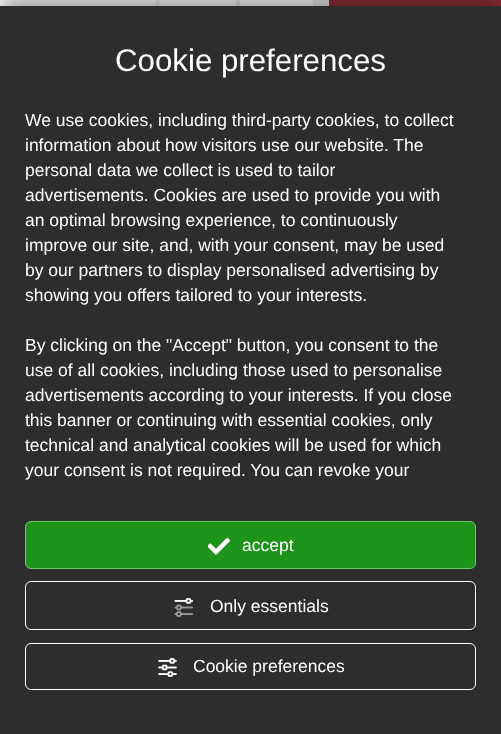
async function draw(canvas) {
  canvas.width = 501
  canvas.height = 734
  const ctx = canvas.getContext('2d')
  ctx.miterLimit = 4
  ctx.fontKerning = 'normal'
  async function loadImage(src) {
    const img = new Image()
    img.src = src
    await img.decode()
    return img
  }

  ctx.fillStyle = '#fff'
  ctx.fillRect(0, 0, 501, 734)
  ctx.drawImage(await loadImage('image0.png'), 156, 0, 173, 6)
  ctx.fillRect(159, 0, 77, 6)
  ctx.fillRect(240, 0, 73, 6)
  ctx.fillStyle = '#912d39'
  ctx.fillRect(329, 0, 172, 6)
  ctx.fillStyle = '#00000061'
  ctx.filter = 'blur(12.5px)'
  ctx.beginPath()
  ctx.rect(0, -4, 501, 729)
  ctx.fill()
  ctx.filter = 'none'
  ctx.fillStyle = '#2d2d2d'
  ctx.fillRect(0, 6, 501, 728)
  ctx.font = '31.25px Liberation Sans'
  ctx.fillStyle = '#fff'
  ctx.fillText('Cookie preferences', 115, 71)
  ctx.font = '17.5px Liberation Sans'
  ctx.fillText('We use cookies, including third-party cookies, to collect', 25, 126)
  ctx.fillText('information about how visitors use our website. The', 25, 151)
  ctx.fillText('personal data we collect is used to tailor', 25, 176)
  ctx.fillText('advertisements. Cookies are used to provide you with', 25, 201)
  ctx.fillText('an optimal browsing experience, to continuously', 25, 226)
  ctx.fillText('improve our site, and, with your consent, may be used', 25, 251)
  ctx.fillText('by our partners to display personalised advertising by', 25, 276)
  ctx.fillText('showing you offers tailored to your interests.', 25, 301)
  ctx.fillText('By clicking on the "Accept" button, you consent to the', 25, 351)
  ctx.fillText('use of all cookies, including those used to personalise', 25, 376)
  ctx.fillText('advertisements according to your interests. If you close', 25, 401)
  ctx.fillText('this banner or continuing with essential cookies, only', 25, 426)
  ctx.fillText('technical and analytical cookies will be used for which', 25, 451)
  ctx.fillText('your consent is not required. You can revoke your', 25, 476)
  ctx.fillStyle = '#1e941a'
  ctx.beginPath()
  ctx.roundRect(25.5, 521.5, 450, 47, 5.5)
  ctx.fill()
  ctx.strokeStyle = '#6cca69'
  ctx.stroke()
  ctx.drawImage(await loadImage('image1.png'), 208, 537, 22, 18)
  ctx.fillStyle = '#fff'
  ctx.fillText('accept', 242, 551)
  ctx.beginPath()
  ctx.roundRect(25.5, 581.5, 450, 48, 5.5)
  ctx.strokeStyle = '#fff'
  ctx.stroke()
  ctx.drawImage(await loadImage('image2.png'), 174, 598, 20, 19)
  ctx.fillText('Only essentials', 210, 612)
  ctx.beginPath()
  ctx.roundRect(25.5, 643.5, 450, 46, 5.5)
  ctx.stroke()
  ctx.drawImage(await loadImage('image3.png'), 158, 658, 19, 19)
  ctx.fillText('Cookie preferences', 193, 672)
}

draw(document.querySelector('canvas'))
